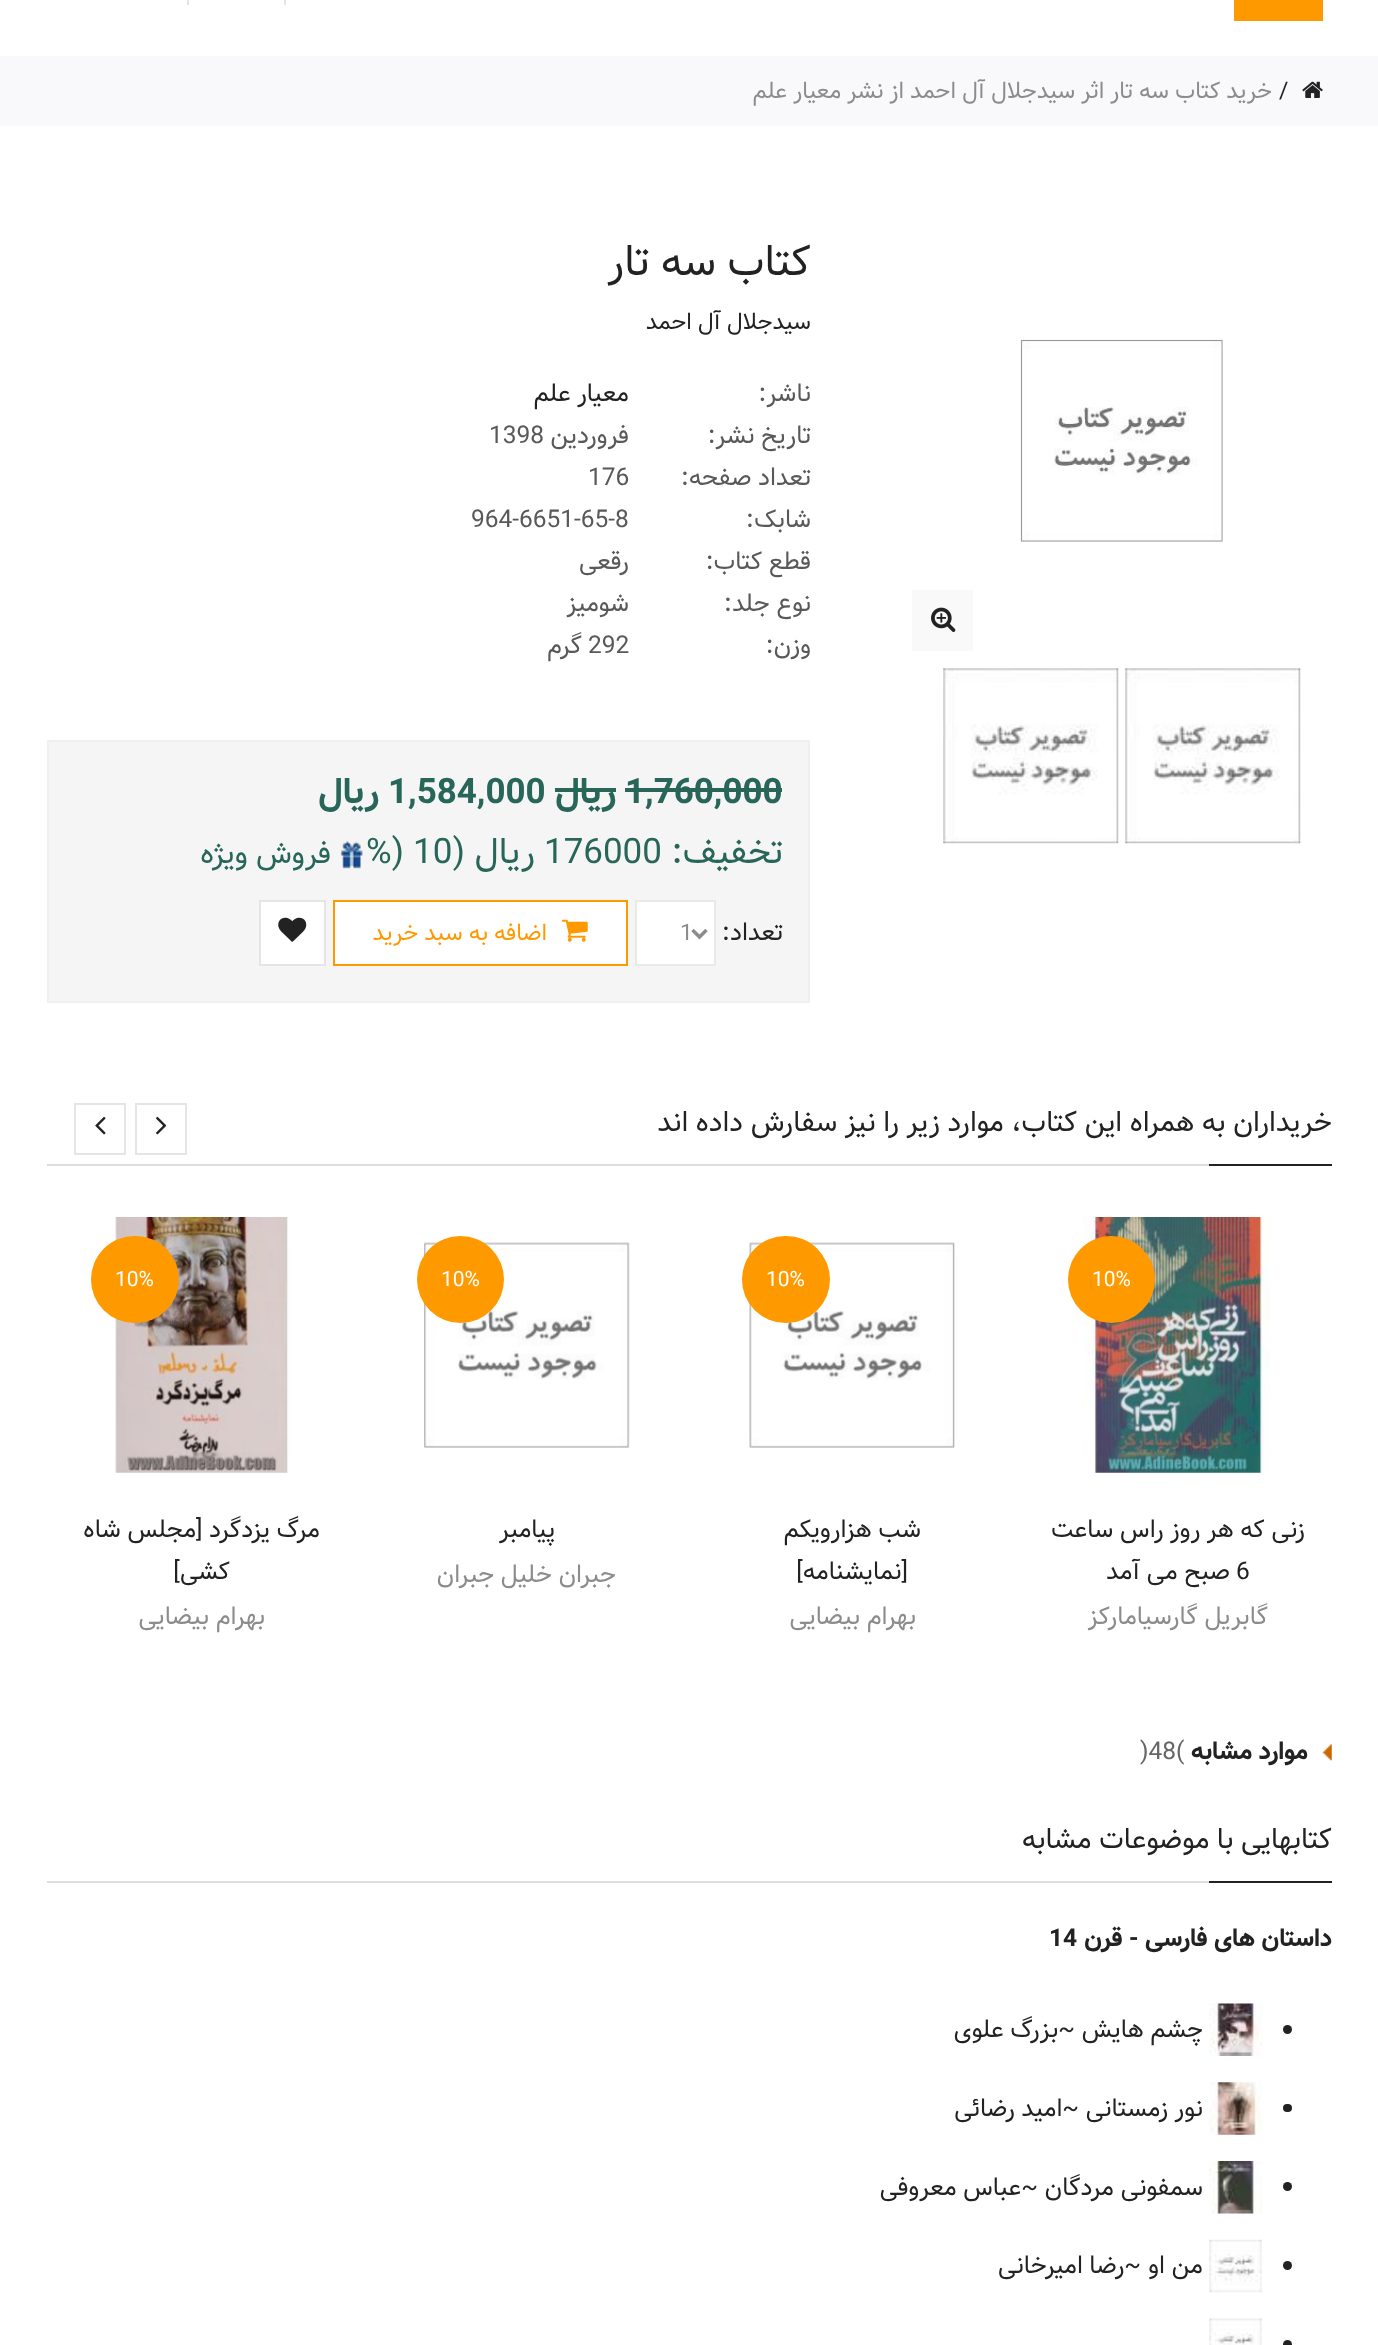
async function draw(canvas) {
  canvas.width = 1378
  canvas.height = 2345
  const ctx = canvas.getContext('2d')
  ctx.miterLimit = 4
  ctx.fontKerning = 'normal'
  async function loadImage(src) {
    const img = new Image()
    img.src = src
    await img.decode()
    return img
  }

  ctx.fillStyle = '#fff'
  ctx.fillRect(0, 0, 1378, 2345)
  ctx.fillStyle = '#f90'
  ctx.fillRect(1234, 0, 89, 21)
  ctx.fillStyle = '#e5e5e5'
  ctx.fillRect(284, 0, 2, 5)
  ctx.fillRect(187, 0, 2, 5)
  ctx.fillStyle = '#f9f9fb'
  ctx.fillRect(0, 56, 1378, 70)
  ctx.drawImage(await loadImage('image0.png'), 1302, 81, 21, 17)
  ctx.font = '22.75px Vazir'
  ctx.fillStyle = '#222'
  ctx.fillText('/', 1279, 98)
  ctx.direction = 'rtl'
  ctx.fillStyle = '#8c8c8c'
  ctx.fillText('خرید کتاب سه تار اثر سیدجلال آل احمد از نشر معیار علم', 1272, 98)
  ctx.drawImage(await loadImage('image1.png'), 1020, 339, 203, 203)
  ctx.fillStyle = '#f9f9fa'
  ctx.fillRect(912, 590, 61, 61)
  ctx.drawImage(await loadImage('image2.png'), 931, 607, 25, 25)
  ctx.drawImage(await loadImage('image3.png'), 1125, 668, 176, 176)
  ctx.drawImage(await loadImage('image3.png'), 943, 668, 176, 176)
  ctx.font = '42px Vazir'
  ctx.fillStyle = '#222'
  ctx.fillText('کتاب سه تار', 811, 275)
  ctx.font = '22.75px Vazir'
  ctx.fillText('سیدجلال آل احمد', 811, 329)
  ctx.font = '24.5px Vazir'
  ctx.fillStyle = '#595959'
  ctx.fillText('ناشر:', 811, 401)
  ctx.fillStyle = '#222'
  ctx.fillText('معیار علم', 629, 401)
  ctx.fillStyle = '#595959'
  ctx.fillText('تاریخ نشر:', 811, 443)
  ctx.fillText('فروردین', 629, 443)
  ctx.direction = 'ltr'
  ctx.fillText('1398', 489, 443)
  ctx.direction = 'rtl'
  ctx.fillText('تعداد صفحه:', 811, 485)
  ctx.direction = 'ltr'
  ctx.fillText('176', 588, 485)
  ctx.direction = 'rtl'
  ctx.fillText('شابک:', 811, 527)
  ctx.direction = 'ltr'
  ctx.fillText('964-6651-65-8', 471, 527)
  ctx.direction = 'rtl'
  ctx.fillText('قطع کتاب:', 811, 569)
  ctx.fillText('رقعی', 629, 569)
  ctx.fillText('نوع جلد:', 811, 611)
  ctx.fillText('شومیز', 629, 611)
  ctx.fillText('وزن:', 811, 653)
  ctx.direction = 'ltr'
  ctx.fillText('292', 588, 653)
  ctx.direction = 'rtl'
  ctx.fillText('گرم', 582, 653)
  ctx.fillStyle = '#f5f5f5'
  ctx.beginPath()
  ctx.rect(48, 741, 761, 261)
  ctx.fill()
  ctx.strokeStyle = '#f0f0f2'
  ctx.lineWidth = 2
  ctx.stroke()
  ctx.direction = 'ltr'
  ctx.font = 'bold 35px Vazir'
  ctx.fillStyle = '#276658'
  ctx.fillText('1,760,000', 625, 803)
  ctx.fillRect(625, 788, 157, 4)
  ctx.direction = 'rtl'
  ctx.fillText('ریال', 616, 803)
  ctx.fillRect(555, 788, 61, 4)
  ctx.direction = 'ltr'
  ctx.fillText('1,584,000', 388, 803)
  ctx.direction = 'rtl'
  ctx.fillText('ریال', 379, 803)
  ctx.font = '35px Vazir'
  ctx.fillText('تخفیف:', 783, 863)
  ctx.direction = 'ltr'
  ctx.fillText('176000', 544, 863)
  ctx.direction = 'rtl'
  ctx.fillText('ریال (', 535, 863)
  ctx.direction = 'ltr'
  ctx.fillText('%) 10', 366, 863)
  ctx.drawImage(await loadImage('image4.png'), 340, 841, 23, 28)
  ctx.direction = 'rtl'
  ctx.font = '29.75px Vazir'
  ctx.fillText('فروش ویژه', 331, 863)
  ctx.font = '24.5px Vazir'
  ctx.fillStyle = '#222'
  ctx.fillText('تعداد:', 783, 940)
  ctx.fillStyle = '#fff'
  ctx.beginPath()
  ctx.rect(636, 901, 79, 64)
  ctx.fill()
  ctx.strokeStyle = '#e9e9e9'
  ctx.stroke()
  ctx.beginPath()
  ctx.moveTo(692.5, 930)
  ctx.lineTo(699.5, 937)
  ctx.lineTo(706.5, 930)
  ctx.strokeStyle = '#8c8c8c'
  ctx.lineWidth = 3.5
  ctx.stroke()
  ctx.direction = 'ltr'
  ctx.font = '22.75px Vazir'
  ctx.fillStyle = '#8c8c8c'
  ctx.fillText('1', 680, 940)
  ctx.fillStyle = '#fff'
  ctx.beginPath()
  ctx.rect(334, 901, 293, 64)
  ctx.fill()
  ctx.strokeStyle = '#f90'
  ctx.lineWidth = 2
  ctx.stroke()
  ctx.drawImage(await loadImage('image5.png'), 561, 919, 27, 23)
  ctx.direction = 'rtl'
  ctx.fillStyle = '#f90'
  ctx.fillText('اضافه به سبد خرید', 547, 940)
  ctx.fillStyle = '#fff'
  ctx.beginPath()
  ctx.rect(260, 901, 65, 64)
  ctx.fill()
  ctx.strokeStyle = '#e5e5e5'
  ctx.stroke()
  ctx.drawImage(await loadImage('image6.png'), 278, 917, 29, 25)
  ctx.fillStyle = '#ddd'
  ctx.fillRect(47, 1164, 1162, 2)
  ctx.font = '28px Vazir'
  ctx.fillStyle = '#222'
  ctx.fillText('خریداران به همراه این کتاب، موارد زیر را نیز سفارش داده اند', 1332, 1131)
  ctx.fillRect(1209, 1164, 123, 2)
  ctx.strokeRect(136, 1104, 50, 50)
  ctx.drawImage(await loadImage('image7.png'), 156, 1116, 11, 19)
  ctx.strokeRect(75, 1104, 50, 50)
  ctx.drawImage(await loadImage('image8.png'), 95, 1116, 11, 19)
  ctx.drawImage(await loadImage('image9.png'), 1083, 1217, 188, 256)
  ctx.fillStyle = '#f90'
  ctx.beginPath()
  ctx.arc(1111.5, 1279.5, 43.5, 0, 2 * Math.PI)
  ctx.fill()
  ctx.direction = 'ltr'
  ctx.font = '21px Vazir'
  ctx.fillStyle = '#fff'
  ctx.fillText('10%', 1092, 1286)
  ctx.direction = 'rtl'
  ctx.font = '24.5px Vazir'
  ctx.fillStyle = '#222'
  ctx.fillText('زنی که هر روز راس ساعت', 1305, 1537)
  ctx.direction = 'ltr'
  ctx.fillText('6', 1236, 1579)
  ctx.direction = 'rtl'
  ctx.fillText('صبح می آمد', 1230, 1579)
  ctx.fillStyle = '#8c8c8c'
  ctx.fillText('گابریل گارسیامارکز', 1268, 1624)
  ctx.drawImage(await loadImage('image10.png'), 749, 1242, 206, 206)
  ctx.fillStyle = '#f90'
  ctx.beginPath()
  ctx.roundRect(742, 1236, 88, 87, 43.5)
  ctx.fill()
  ctx.direction = 'ltr'
  ctx.font = '21px Vazir'
  ctx.fillStyle = '#fff'
  ctx.fillText('10%', 766, 1286)
  ctx.direction = 'rtl'
  ctx.font = '24.5px Vazir'
  ctx.fillStyle = '#222'
  ctx.fillText('شب هزارویکم', 921, 1537)
  ctx.fillText('[نمایشنامه]', 908, 1579)
  ctx.fillStyle = '#8c8c8c'
  ctx.fillText('بهرام بیضایی', 916, 1624)
  ctx.drawImage(await loadImage('image11.png'), 424, 1242, 206, 206)
  ctx.fillStyle = '#f90'
  ctx.beginPath()
  ctx.arc(460.5, 1279.5, 43.5, 0, 2 * Math.PI)
  ctx.fill()
  ctx.direction = 'ltr'
  ctx.font = '21px Vazir'
  ctx.fillStyle = '#fff'
  ctx.fillText('10%', 441, 1286)
  ctx.direction = 'rtl'
  ctx.font = '24.5px Vazir'
  ctx.fillStyle = '#222'
  ctx.fillText('پیامبر', 555, 1537)
  ctx.fillStyle = '#8c8c8c'
  ctx.fillText('جبران خلیل جبران', 616, 1582)
  ctx.drawImage(await loadImage('image12.png'), 115, 1217, 175, 256)
  ctx.fillStyle = '#f90'
  ctx.beginPath()
  ctx.roundRect(91, 1236, 88, 87, 43.5)
  ctx.fill()
  ctx.direction = 'ltr'
  ctx.font = '21px Vazir'
  ctx.fillStyle = '#fff'
  ctx.fillText('10%', 115, 1286)
  ctx.direction = 'rtl'
  ctx.font = '24.5px Vazir'
  ctx.fillStyle = '#222'
  ctx.fillText('مرگ یزدگرد [مجلس شاه', 320, 1537)
  ctx.fillText('کشی]', 230, 1579)
  ctx.fillStyle = '#8c8c8c'
  ctx.fillText('بهرام بیضایی', 265, 1624)
  ctx.drawImage(await loadImage('image13.png'), 1322, 1744, 10, 17)
  ctx.font = 'bold 24.5px Vazir'
  ctx.fillStyle = '#222'
  ctx.fillText('موارد مشابه', 1308, 1759)
  ctx.direction = 'ltr'
  ctx.font = '24.5px Vazir'
  ctx.fillStyle = '#666'
  ctx.fillText(')48(', 1140, 1759)
  ctx.fillStyle = '#ddd'
  ctx.fillRect(47, 1881, 1162, 2)
  ctx.direction = 'rtl'
  ctx.font = '28px Vazir'
  ctx.fillStyle = '#222'
  ctx.fillText('کتابهایی با موضوعات مشابه', 1332, 1848)
  ctx.fillRect(1209, 1881, 123, 2)
  ctx.font = 'bold 24.5px Vazir'
  ctx.fillText('داستان های فارسی - قرن', 1332, 1946)
  ctx.direction = 'ltr'
  ctx.fillText('14', 1049, 1946)
  ctx.beginPath()
  ctx.arc(1287.5, 2029.5, 4.5, 0, 2 * Math.PI)
  ctx.fill()
  ctx.drawImage(await loadImage('image14.png'), 1209, 2003, 53, 53)
  ctx.direction = 'rtl'
  ctx.font = '24.5px Vazir'
  ctx.fillText('چشم هایش', 1203, 2037)
  ctx.fillText('~بزرگ علوی', 1075, 2037)
  ctx.beginPath()
  ctx.roundRect(1283, 2104, 9, 8, 4)
  ctx.fill()
  ctx.drawImage(await loadImage('image15.png'), 1209, 2082, 53, 53)
  ctx.fillText('نور زمستانی', 1203, 2116)
  ctx.fillText('~امید رضائی', 1079, 2116)
  ctx.beginPath()
  ctx.arc(1287.5, 2186.5, 4.5, 0, 2 * Math.PI)
  ctx.fill()
  ctx.drawImage(await loadImage('image16.png'), 1209, 2161, 53, 53)
  ctx.fillText('سمفونی مردگان', 1203, 2195)
  ctx.fillText('~عباس معروفی', 1038, 2195)
  ctx.beginPath()
  ctx.arc(1287.5, 2265.5, 4.5, 0, 2 * Math.PI)
  ctx.fill()
  ctx.drawImage(await loadImage('image17.png'), 1209, 2239, 53, 54)
  ctx.fillText('من او', 1203, 2273)
  ctx.fillText('~رضا امیرخانی', 1141, 2273)
  ctx.beginPath()
  ctx.arc(1287.5, 2344.5, 4.5, 0, 2 * Math.PI)
  ctx.fill()
  ctx.drawImage(await loadImage('image18.png'), 1209, 2318, 53, 27)
}

draw(document.querySelector('canvas'))
